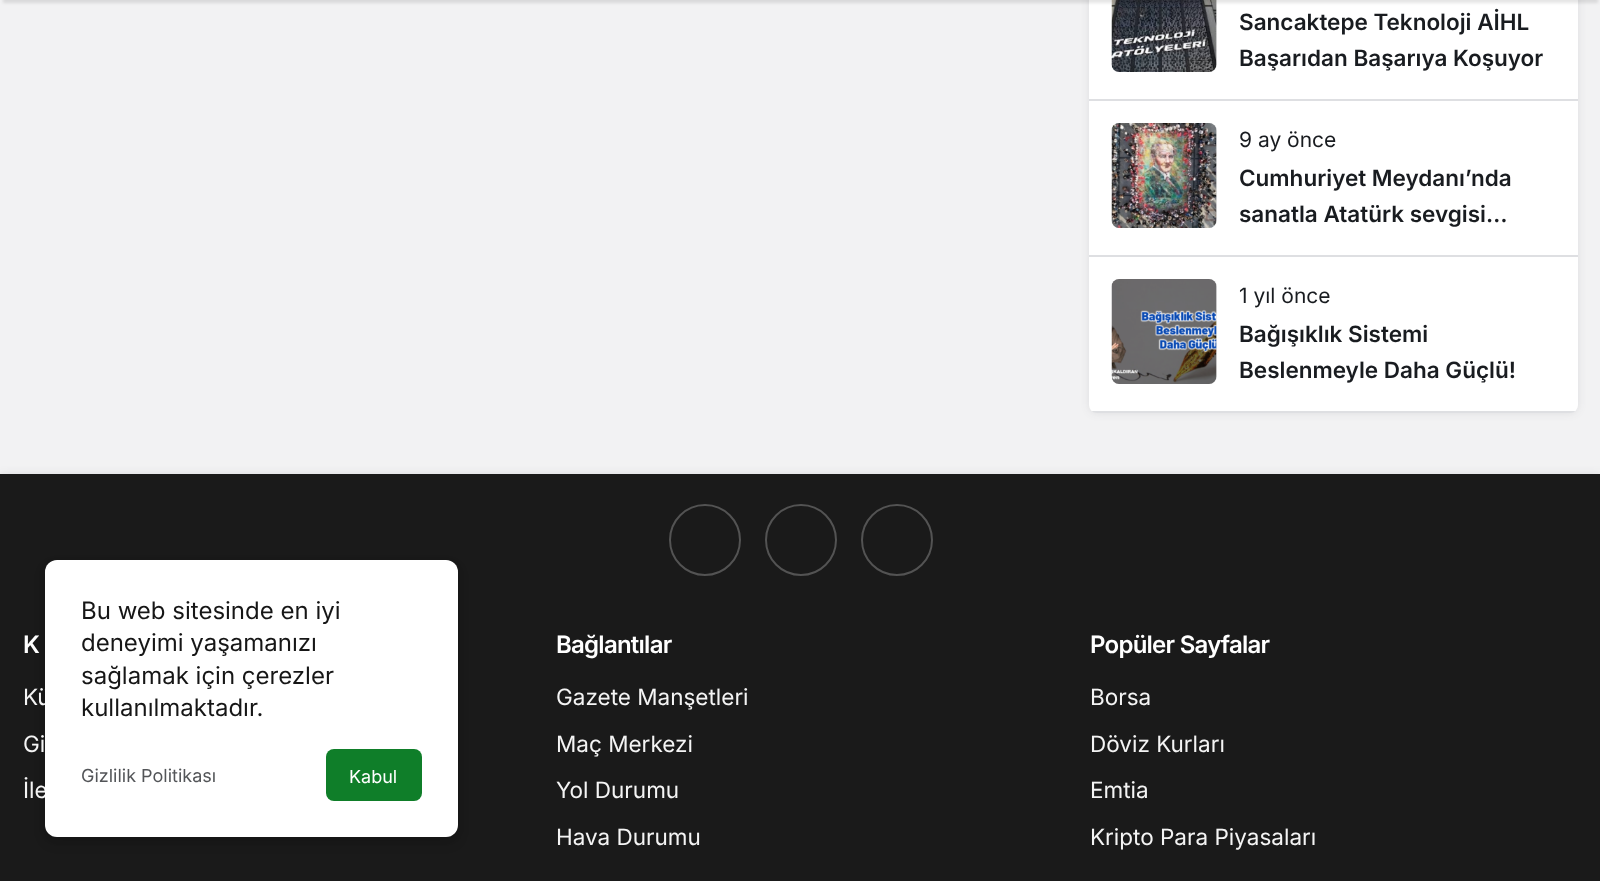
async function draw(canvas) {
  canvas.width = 1600
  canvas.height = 881
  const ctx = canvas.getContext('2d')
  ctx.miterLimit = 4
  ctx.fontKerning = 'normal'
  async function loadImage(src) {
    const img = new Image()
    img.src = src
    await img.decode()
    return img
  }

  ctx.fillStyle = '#f2f2f3'
  ctx.fillRect(0, 0, 1600, 881)
  ctx.fillStyle = '#32353d1a'
  ctx.filter = 'blur(4px)'
  ctx.beginPath()
  ctx.roundRect(1089, -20, 489, 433, 8)
  ctx.fill()
  ctx.filter = 'none'
  ctx.fillStyle = '#fff'
  ctx.beginPath()
  ctx.roundRect(1089, -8, 489, 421, 8)
  ctx.fill()
  ctx.fillStyle = '#e6e6e6'
  ctx.beginPath()
  ctx.roundRect(1112, -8, 105, 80, 8)
  ctx.fill()
  ctx.drawImage(await loadImage('image0.png'), 1111, 0, 106, 72)
  ctx.fillStyle = '#0000001a'
  ctx.filter = 'blur(1.5px)'
  ctx.beginPath()
  ctx.rect(3, -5, 1595, 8)
  ctx.fill()
  ctx.filter = 'none'
  ctx.fillStyle = '#dedfe2'
  ctx.fillRect(1089, 99, 489, 2)
  ctx.font = '600 22.5px Inter'
  ctx.fillStyle = '#191c20'
  ctx.fillText('Sancaktepe Teknoloji AİHL', 1239, 30)
  ctx.fillText('Başarıdan Başarıya Koşuyor', 1239, 66)
  ctx.fillStyle = '#dedfe2'
  ctx.fillRect(1089, 255, 489, 2)
  ctx.fillStyle = '#e6e6e6'
  ctx.beginPath()
  ctx.roundRect(1112, 123, 105, 105, 8)
  ctx.fill()
  ctx.drawImage(await loadImage('image1.png'), 1111, 123, 106, 105)
  ctx.font = '21px Inter'
  ctx.fillStyle = '#191c20'
  ctx.fillText('9 ay önce', 1239, 147)
  ctx.font = '600 22.5px Inter'
  ctx.fillText('Cumhuriyet Meydanı’nda', 1239, 186)
  ctx.fillText('sanatla Atatürk sevgisi…', 1239, 222)
  ctx.save()
  ctx.beginPath()
  ctx.roundRect(1089, -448, 489, 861, 8)
  ctx.clip()
  ctx.fillStyle = '#5b616e33'
  ctx.fillRect(1089, 411, 489, 2)
  ctx.restore()
  ctx.fillStyle = '#e6e6e6'
  ctx.beginPath()
  ctx.roundRect(1112, 279, 105, 105, 8)
  ctx.fill()
  ctx.drawImage(await loadImage('image2.png'), 1111, 279, 106, 105)
  ctx.font = '21px Inter'
  ctx.fillStyle = '#191c20'
  ctx.fillText('1 yıl önce', 1239, 303)
  ctx.font = '600 22.5px Inter'
  ctx.fillText('Bağışıklık Sistemi', 1239, 342)
  ctx.fillText('Beslenmeyle Daha Güçlü!', 1239, 378)
  ctx.fillStyle = '#32353d1a'
  ctx.filter = 'blur(4px)'
  ctx.beginPath()
  ctx.rect(0, 474, 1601, 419)
  ctx.fill()
  ctx.filter = 'none'
  ctx.fillStyle = '#1a1a1a'
  ctx.fillRect(0, 474, 1600, 407)
  ctx.fillStyle = '#00000014'
  ctx.filter = 'blur(3px)'
  ctx.beginPath()
  ctx.roundRect(45, 563, 413, 277, 12)
  ctx.fill()
  ctx.filter = 'none'
  ctx.fillStyle = '#0000001f'
  ctx.filter = 'blur(6px)'
  ctx.beginPath()
  ctx.roundRect(45, 566, 413, 277, 12)
  ctx.fill()
  ctx.filter = 'none'
  ctx.font = '22.5px Inter'
  ctx.fillStyle = '#f4f4f4'
  ctx.fillText('Kü', 23, 705)
  ctx.fillText('İle', 23, 798)
  ctx.fillStyle = '#fff'
  ctx.beginPath()
  ctx.roundRect(45, 560, 413, 277, 12)
  ctx.fill()
  ctx.font = '24px Inter'
  ctx.fillStyle = '#161616'
  ctx.fillText('Bu web sitesinde en iyi', 81, 619)
  ctx.fillText('deneyimi yaşamanızı', 81, 651)
  ctx.fillText('sağlamak için çerezler', 81, 684)
  ctx.fillText('kullanılmaktadır.', 81, 716)
  ctx.font = '18px Inter'
  ctx.fillStyle = '#535558'
  ctx.fillText('Gizlilik Politikası', 81, 782)
  ctx.fillStyle = '#0f7e29'
  ctx.beginPath()
  ctx.roundRect(326, 749, 96, 52, 8)
  ctx.fill()
  ctx.fillStyle = '#fff'
  ctx.fillText('Kabul', 349, 783)
  ctx.beginPath()
  ctx.arc(705, 540, 35, 0, 2 * Math.PI)
  ctx.strokeStyle = '#535353'
  ctx.lineWidth = 2
  ctx.stroke()
  ctx.beginPath()
  ctx.arc(801, 540, 35, 0, 2 * Math.PI)
  ctx.stroke()
  ctx.beginPath()
  ctx.arc(897, 540, 35, 0, 2 * Math.PI)
  ctx.stroke()
  ctx.letterSpacing = '-0.75px'
  ctx.font = '600 24px Inter'
  ctx.fillText('K', 23, 653)
  ctx.letterSpacing = '0px'
  ctx.font = '22.5px Inter'
  ctx.fillStyle = '#f4f4f4'
  ctx.fillText('Gi', 23, 752)
  ctx.letterSpacing = '-0.75px'
  ctx.font = '600 24px Inter'
  ctx.fillStyle = '#fff'
  ctx.fillText('Bağlantılar', 556, 653)
  ctx.letterSpacing = '0px'
  ctx.font = '22.5px Inter'
  ctx.fillStyle = '#f4f4f4'
  ctx.fillText('Gazete Manşetleri', 556, 705)
  ctx.fillText('Maç Merkezi', 556, 752)
  ctx.fillText('Yol Durumu', 556, 798)
  ctx.fillText('Hava Durumu', 556, 845)
  ctx.letterSpacing = '-0.75px'
  ctx.font = '600 24px Inter'
  ctx.fillStyle = '#fff'
  ctx.fillText('Popüler Sayfalar', 1090, 653)
  ctx.letterSpacing = '0px'
  ctx.font = '22.5px Inter'
  ctx.fillStyle = '#f4f4f4'
  ctx.fillText('Borsa', 1090, 705)
  ctx.fillText('Döviz Kurları', 1090, 752)
  ctx.fillText('Emtia', 1090, 798)
  ctx.fillText('Kripto Para Piyasaları', 1090, 845)
}

draw(document.querySelector('canvas'))
